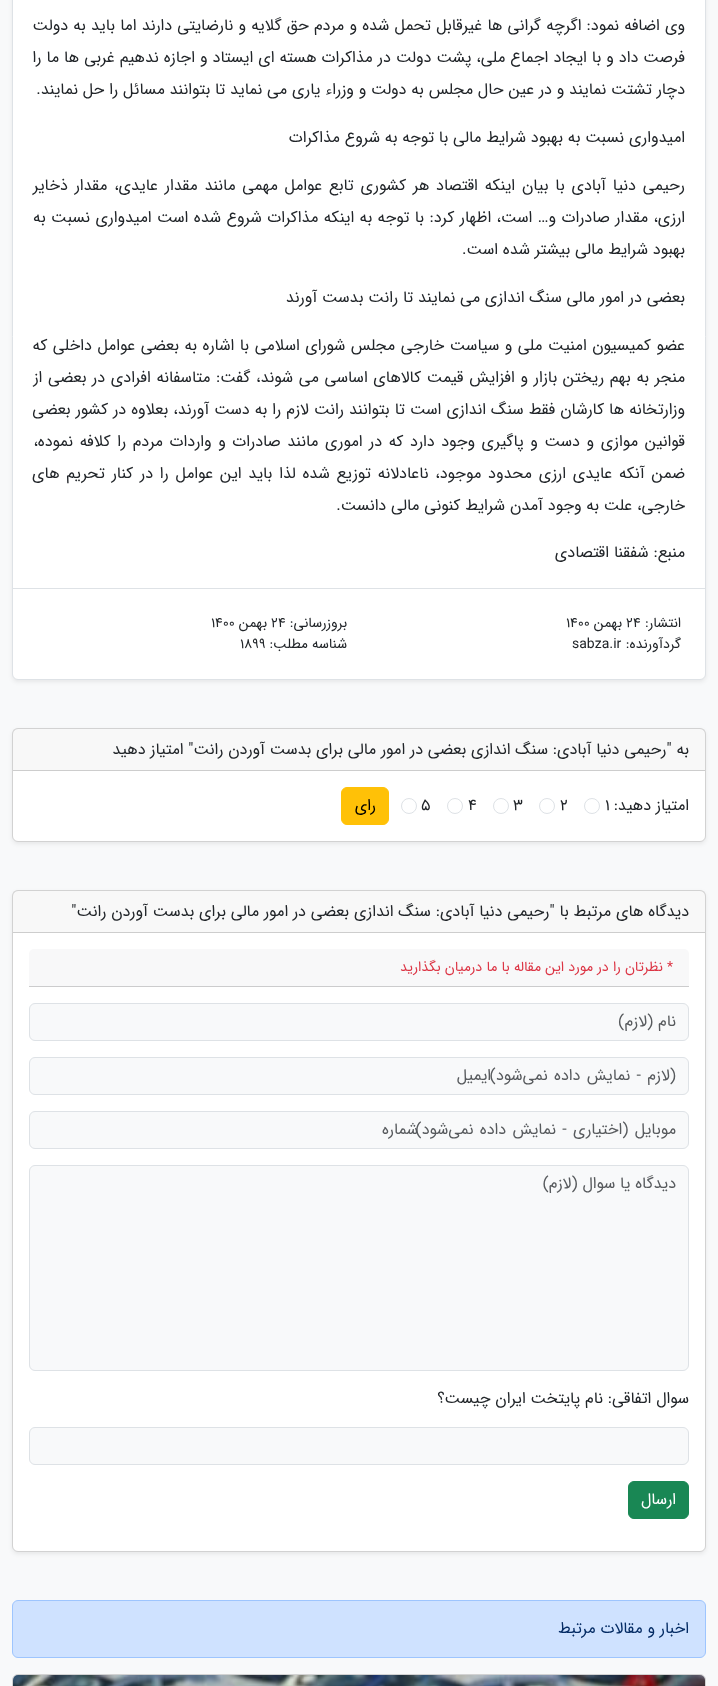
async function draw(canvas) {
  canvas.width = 718
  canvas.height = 1686
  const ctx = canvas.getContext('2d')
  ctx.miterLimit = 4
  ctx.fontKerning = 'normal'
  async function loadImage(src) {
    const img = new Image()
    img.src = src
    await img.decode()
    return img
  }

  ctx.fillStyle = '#f8f9fa'
  ctx.fillRect(0, 0, 718, 1686)
  ctx.fillStyle = '#00000012'
  ctx.filter = 'blur(2px)'
  ctx.beginPath()
  ctx.roundRect(12, -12, 694, 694, 6)
  ctx.fill()
  ctx.filter = 'none'
  ctx.fillStyle = '#fff'
  ctx.beginPath()
  ctx.roundRect(12.5, -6.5, 693, 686, 5.5)
  ctx.fill()
  ctx.strokeStyle = '#dee2e6'
  ctx.stroke()
  ctx.wordSpacing = '0.4px'
  ctx.direction = 'rtl'
  ctx.font = '16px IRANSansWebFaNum'
  ctx.fillStyle = '#212529'
  ctx.fillText('وی اضافه نمود: اگرچه گرانی ها غیرقابل تحمل شده و مردم حق گلایه و نارضایتی دارند اما باید به دولت', 685, 30)
  ctx.wordSpacing = '0.25px'
  ctx.fillText('فرصت داد و با ایجاد اجماع ملی، پشت دولت در مذاکرات هسته ای ایستاد و اجازه ندهیم غربی ها ما را', 685, 62)
  ctx.wordSpacing = '0px'
  ctx.fillText('دچار تشتت نمایند و در عین حال مجلس به دولت و وزراء یاری می نماید تا بتوانند مسائل را حل نمایند.', 685, 94)
  ctx.fillText('امیدواری نسبت به بهبود شرایط مالی با توجه به شروع مذاکرات', 685, 142)
  ctx.wordSpacing = '2px'
  ctx.fillText('رحیمی دنیا آبادی با بیان اینکه اقتصاد هر کشوری تابع عوامل مهمی مانند مقدار عایدی، مقدار ذخایر', 685, 190)
  ctx.wordSpacing = '0.6px'
  ctx.fillText('ارزی، مقدار صادرات و… است، اظهار کرد: با توجه به اینکه مذاکرات شروع شده است امیدواری نسبت به', 685, 222)
  ctx.wordSpacing = '0px'
  ctx.fillText('بهبود شرایط مالی بیشتر شده است.', 685, 254)
  ctx.fillText('بعضی در امور مالی سنگ اندازی می نمایند تا رانت بدست آورند', 685, 302)
  ctx.wordSpacing = '0.7px'
  ctx.fillText('عضو کمیسیون امنیت ملی و سیاست خارجی مجلس شورای اسلامی با اشاره به بعضی عوامل داخلی که', 685, 350)
  ctx.wordSpacing = '0.9px'
  ctx.fillText('منجر به بهم ریختن بازار و افزایش قیمت کالاهای اساسی می شوند، گفت: متاسفانه افرادی در بعضی از', 685, 382)
  ctx.wordSpacing = '0.25px'
  ctx.fillText('وزارتخانه ها کارشان فقط سنگ اندازی است تا بتوانند رانت لازم را به دست آورند، بعلاوه در کشور بعضی', 685, 414)
  ctx.wordSpacing = '1.8px'
  ctx.fillText('قوانین موازی و دست و پاگیری وجود دارد که در اموری مانند صادرات و واردات مردم را کلافه نموده،', 685, 446)
  ctx.wordSpacing = '2px'
  ctx.fillText('ضمن آنکه عایدی ارزی محدود موجود، ناعادلانه توزیع شده لذا باید این عوامل را در کنار تحریم های', 685, 478)
  ctx.wordSpacing = '0px'
  ctx.fillText('خارجی، علت به وجود آمدن شرایط کنونی مالی دانست.', 685, 510)
  ctx.fillText('منبع: شفقنا اقتصادی', 685, 557)
  ctx.fillStyle = '#dee2e6'
  ctx.fillRect(13, 588, 692, 1)
  ctx.font = '14px IRANSansWebFaNum'
  ctx.fillStyle = '#212529'
  ctx.fillText('انتشار:', 681, 627)
  ctx.direction = 'ltr'
  ctx.fillText('24', 626, 627)
  ctx.direction = 'rtl'
  ctx.fillText('بهمن', 622, 627)
  ctx.direction = 'ltr'
  ctx.fillText('1400', 566, 627)
  ctx.direction = 'rtl'
  ctx.fillText('بروزرسانی:', 347, 627)
  ctx.direction = 'ltr'
  ctx.fillText('24', 271, 627)
  ctx.direction = 'rtl'
  ctx.fillText('بهمن', 267, 627)
  ctx.direction = 'ltr'
  ctx.fillText('1400', 211, 627)
  ctx.direction = 'rtl'
  ctx.fillText('گردآورنده:', 681, 648)
  ctx.direction = 'ltr'
  ctx.fillText('sabza.ir', 572, 648)
  ctx.direction = 'rtl'
  ctx.fillText('شناسه مطلب:', 347, 648)
  ctx.direction = 'ltr'
  ctx.fillText('1899', 240, 648)
  ctx.fillStyle = '#00000012'
  ctx.filter = 'blur(2px)'
  ctx.beginPath()
  ctx.roundRect(12, 730, 694, 114, 6)
  ctx.fill()
  ctx.filter = 'none'
  ctx.fillStyle = '#fff'
  ctx.beginPath()
  ctx.roundRect(12.5, 728.5, 693, 113, 5.5)
  ctx.fill()
  ctx.strokeStyle = '#d2d2d2'
  ctx.stroke()
  ctx.fillStyle = '#21252908'
  ctx.fillRect(13, 729, 692, 41)
  ctx.fillStyle = '#cdcdcd'
  ctx.fillRect(13, 770, 692, 1)
  ctx.direction = 'rtl'
  ctx.font = '16px IRANSansWebFaNum'
  ctx.fillStyle = '#212529'
  ctx.fillText('به "رحیمی دنیا آبادی: سنگ اندازی بعضی در امور مالی برای بدست آوردن رانت" امتیاز دهید', 689, 754)
  ctx.fillText('امتیاز دهید:', 689, 810)
  ctx.direction = 'ltr'
  ctx.fillText('1', 605, 810)
  ctx.beginPath()
  ctx.arc(592, 806, 7.5, 0, 2 * Math.PI)
  ctx.strokeStyle = '#dee2e6'
  ctx.stroke()
  ctx.fillText('2', 560, 810)
  ctx.beginPath()
  ctx.arc(547, 806, 7.5, 0, 2 * Math.PI)
  ctx.stroke()
  ctx.fillText('3', 513, 810)
  ctx.beginPath()
  ctx.arc(501, 806, 7.5, 0, 2 * Math.PI)
  ctx.stroke()
  ctx.fillText('4', 468, 810)
  ctx.beginPath()
  ctx.arc(455, 806, 7.5, 0, 2 * Math.PI)
  ctx.stroke()
  ctx.fillText('5', 421, 810)
  ctx.beginPath()
  ctx.arc(409, 806, 7.5, 0, 2 * Math.PI)
  ctx.stroke()
  ctx.fillStyle = '#ffc107'
  ctx.beginPath()
  ctx.roundRect(341.5, 787.5, 47, 37, 5.5)
  ctx.fill()
  ctx.strokeStyle = '#ffc107'
  ctx.stroke()
  ctx.direction = 'rtl'
  ctx.fillStyle = '#000'
  ctx.fillText('رای', 376, 810)
  ctx.fillStyle = '#00000012'
  ctx.filter = 'blur(2px)'
  ctx.beginPath()
  ctx.roundRect(12, 892, 694, 662, 6)
  ctx.fill()
  ctx.filter = 'none'
  ctx.fillStyle = '#fff'
  ctx.beginPath()
  ctx.roundRect(12.5, 890.5, 693, 661, 5.5)
  ctx.fill()
  ctx.strokeStyle = '#d2d2d2'
  ctx.stroke()
  ctx.fillStyle = '#21252908'
  ctx.fillRect(13, 891, 692, 41)
  ctx.fillStyle = '#cdcdcd'
  ctx.fillRect(13, 932, 692, 1)
  ctx.fillStyle = '#212529'
  ctx.fillText('دیدگاه های مرتبط با "رحیمی دنیا آبادی: سنگ اندازی بعضی در امور مالی برای بدست آوردن رانت"', 689, 916)
  ctx.fillStyle = '#f8f8f9'
  ctx.beginPath()
  ctx.roundRect(29, 949, 660, 38, [5, 5, 0, 0])
  ctx.fill()
  ctx.fillStyle = '#cccccd'
  ctx.fillRect(29, 986, 660, 1)
  ctx.font = '14px IRANSansWebFaNum'
  ctx.fillStyle = '#dc3545'
  ctx.fillText('* نظرتان را در مورد این مقاله با ما درمیان بگذارید', 673, 971)
  ctx.fillStyle = '#f8f9fa'
  ctx.beginPath()
  ctx.roundRect(29.5, 1003.5, 659, 37, 5.5)
  ctx.fill()
  ctx.strokeStyle = '#dee2e6'
  ctx.stroke()
  ctx.font = '16px IRANSansWebFaNum'
  ctx.fillStyle = '#575a5d'
  ctx.fillText('نام (لازم)', 676, 1026)
  ctx.fillStyle = '#f8f9fa'
  ctx.beginPath()
  ctx.roundRect(29.5, 1057.5, 659, 37, 5.5)
  ctx.fill()
  ctx.stroke()
  ctx.wordSpacing = '1.5px'
  ctx.fillStyle = '#575a5d'
  ctx.fillText('(لازم - نمایش داده نمی‌شود)', 676, 1080)
  ctx.wordSpacing = '0px'
  ctx.fillText('ایمیل', 491, 1080)
  ctx.fillStyle = '#f8f9fa'
  ctx.beginPath()
  ctx.roundRect(29.5, 1111.5, 659, 37, 5.5)
  ctx.fill()
  ctx.stroke()
  ctx.fillStyle = '#575a5d'
  ctx.fillText('شماره', 418, 1134)
  ctx.wordSpacing = '1.5px'
  ctx.fillText('موبایل (اختیاری - نمایش داده نمی‌شود)', 676, 1134)
  ctx.fillStyle = '#f8f9fa'
  ctx.beginPath()
  ctx.roundRect(29.5, 1165.5, 659, 205, 5.5)
  ctx.fill()
  ctx.stroke()
  ctx.wordSpacing = '0px'
  ctx.fillStyle = '#575a5d'
  ctx.fillText('دیدگاه یا سوال (لازم)', 676, 1188)
  ctx.fillStyle = '#212529'
  ctx.fillText('سوال اتفاقی: نام پایتخت ایران چیست؟', 689, 1403)
  ctx.fillStyle = '#f8f9fa'
  ctx.beginPath()
  ctx.roundRect(29.5, 1427.5, 659, 37, 5.5)
  ctx.fill()
  ctx.stroke()
  ctx.fillStyle = '#198754'
  ctx.beginPath()
  ctx.roundRect(628.5, 1481.5, 60, 37, 5.5)
  ctx.fill()
  ctx.strokeStyle = '#198754'
  ctx.stroke()
  ctx.fillStyle = '#fff'
  ctx.fillText('ارسال', 676, 1504)
  ctx.fillStyle = '#cfe2ff'
  ctx.beginPath()
  ctx.roundRect(12.5, 1600.5, 693, 57, 5.5)
  ctx.fill()
  ctx.strokeStyle = '#9ec5fe'
  ctx.stroke()
  ctx.fillStyle = '#052c65'
  ctx.fillText('اخبار و مقالات مرتبط', 689, 1633)
  ctx.beginPath()
  ctx.roundRect(12.5, 1674.5, 693, 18, 5.5)
  ctx.strokeStyle = '#d2d2d2'
  ctx.stroke()
  ctx.drawImage(await loadImage('image0.png'), 13, 1675, 692, 11)
}

draw(document.querySelector('canvas'))
